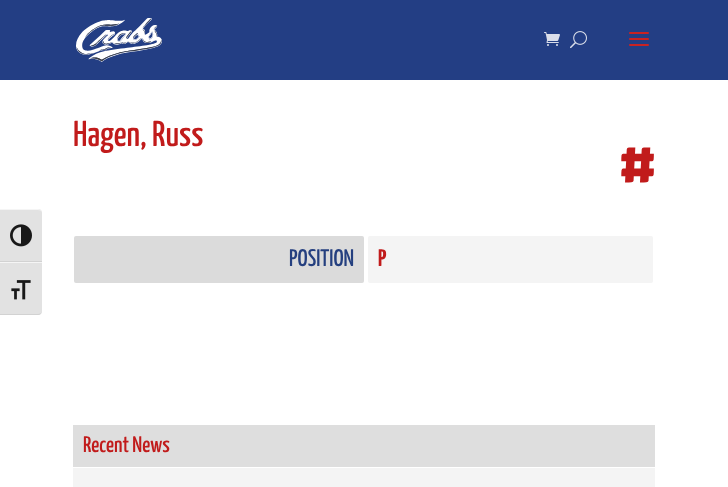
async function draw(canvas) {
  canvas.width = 728
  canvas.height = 487
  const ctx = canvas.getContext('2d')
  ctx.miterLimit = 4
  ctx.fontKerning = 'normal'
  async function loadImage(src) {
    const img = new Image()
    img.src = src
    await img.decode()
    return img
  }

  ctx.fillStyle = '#fff'
  ctx.fillRect(0, 0, 728, 487)
  ctx.fillStyle = '#e2e2e2'
  ctx.beginPath()
  ctx.roundRect(0, 209, 42, 53, [0, 4, 0, 0])
  ctx.fill()
  ctx.fillStyle = '#f5f5f5'
  ctx.beginPath()
  ctx.moveTo(0, 209)
  ctx.lineTo(0, 210)
  ctx.lineTo(38, 210)
  ctx.bezierCurveTo(40, 210, 42, 211, 42, 213)
  ctx.bezierCurveTo(42, 211, 40, 209, 38, 209)
  ctx.closePath()
  ctx.fill()
  ctx.fillStyle = '#d2d2d2'
  ctx.fillRect(0, 261, 42, 1)
  ctx.drawImage(await loadImage('image0.png'), 10, 224, 22, 23)
  ctx.fillStyle = '#e2e2e2'
  ctx.beginPath()
  ctx.roundRect(0, 262, 42, 53, [0, 0, 4, 0])
  ctx.fill()
  ctx.fillStyle = '#f5f5f5'
  ctx.fillRect(0, 262, 42, 1)
  ctx.fillStyle = '#d2d2d2'
  ctx.beginPath()
  ctx.moveTo(0, 314)
  ctx.lineTo(0, 315)
  ctx.lineTo(38, 315)
  ctx.bezierCurveTo(40, 315, 42, 313, 42, 311)
  ctx.bezierCurveTo(42, 313, 40, 314, 38, 314)
  ctx.closePath()
  ctx.fill()
  ctx.drawImage(await loadImage('image1.png'), 11, 280, 20, 20)
  ctx.fillStyle = '#233e84'
  ctx.fillRect(0, 0, 728, 80)
  ctx.drawImage(await loadImage('image2.png'), 76, 18, 86, 44)
  ctx.drawImage(await loadImage('image3.png'), 544, 32, 16, 14)
  ctx.drawImage(await loadImage('image4.png'), 570, 31, 17, 18)
  ctx.drawImage(await loadImage('image5.png'), 629, 32, 20, 14)
  ctx.font = '200 36px "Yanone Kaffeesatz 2"'
  ctx.fillStyle = '#c11b1b'
  ctx.fillText('Hagen, Russ', 73, 146)
  ctx.font = '200 88px Yanone Kaffeesatz'
  ctx.fillText('#', 620, 192)
  ctx.fillStyle = '#dbdbdb'
  ctx.beginPath()
  ctx.roundRect(74, 236, 290, 47, 2)
  ctx.fill()
  ctx.font = '200 24px "Yanone Kaffeesatz 2"'
  ctx.fillStyle = '#243f7f'
  ctx.fillText('POSITION', 289, 266)
  ctx.fillStyle = '#f4f4f4'
  ctx.beginPath()
  ctx.roundRect(368, 236, 285, 47, 2)
  ctx.fill()
  ctx.font = '200 24px Yanone Kaffeesatz'
  ctx.fillStyle = '#c11b1b'
  ctx.fillText('P', 378, 266)
  ctx.fillStyle = '#dedede'
  ctx.fillRect(73, 425, 582, 42)
  ctx.font = '200 22.5px "Yanone Kaffeesatz 2"'
  ctx.fillStyle = '#c11b1b'
  ctx.fillText('Recent News', 83, 452)
  ctx.fillStyle = '#f4f4f4'
  ctx.fillRect(73, 468, 582, 19)
}

draw(document.querySelector('canvas'))
